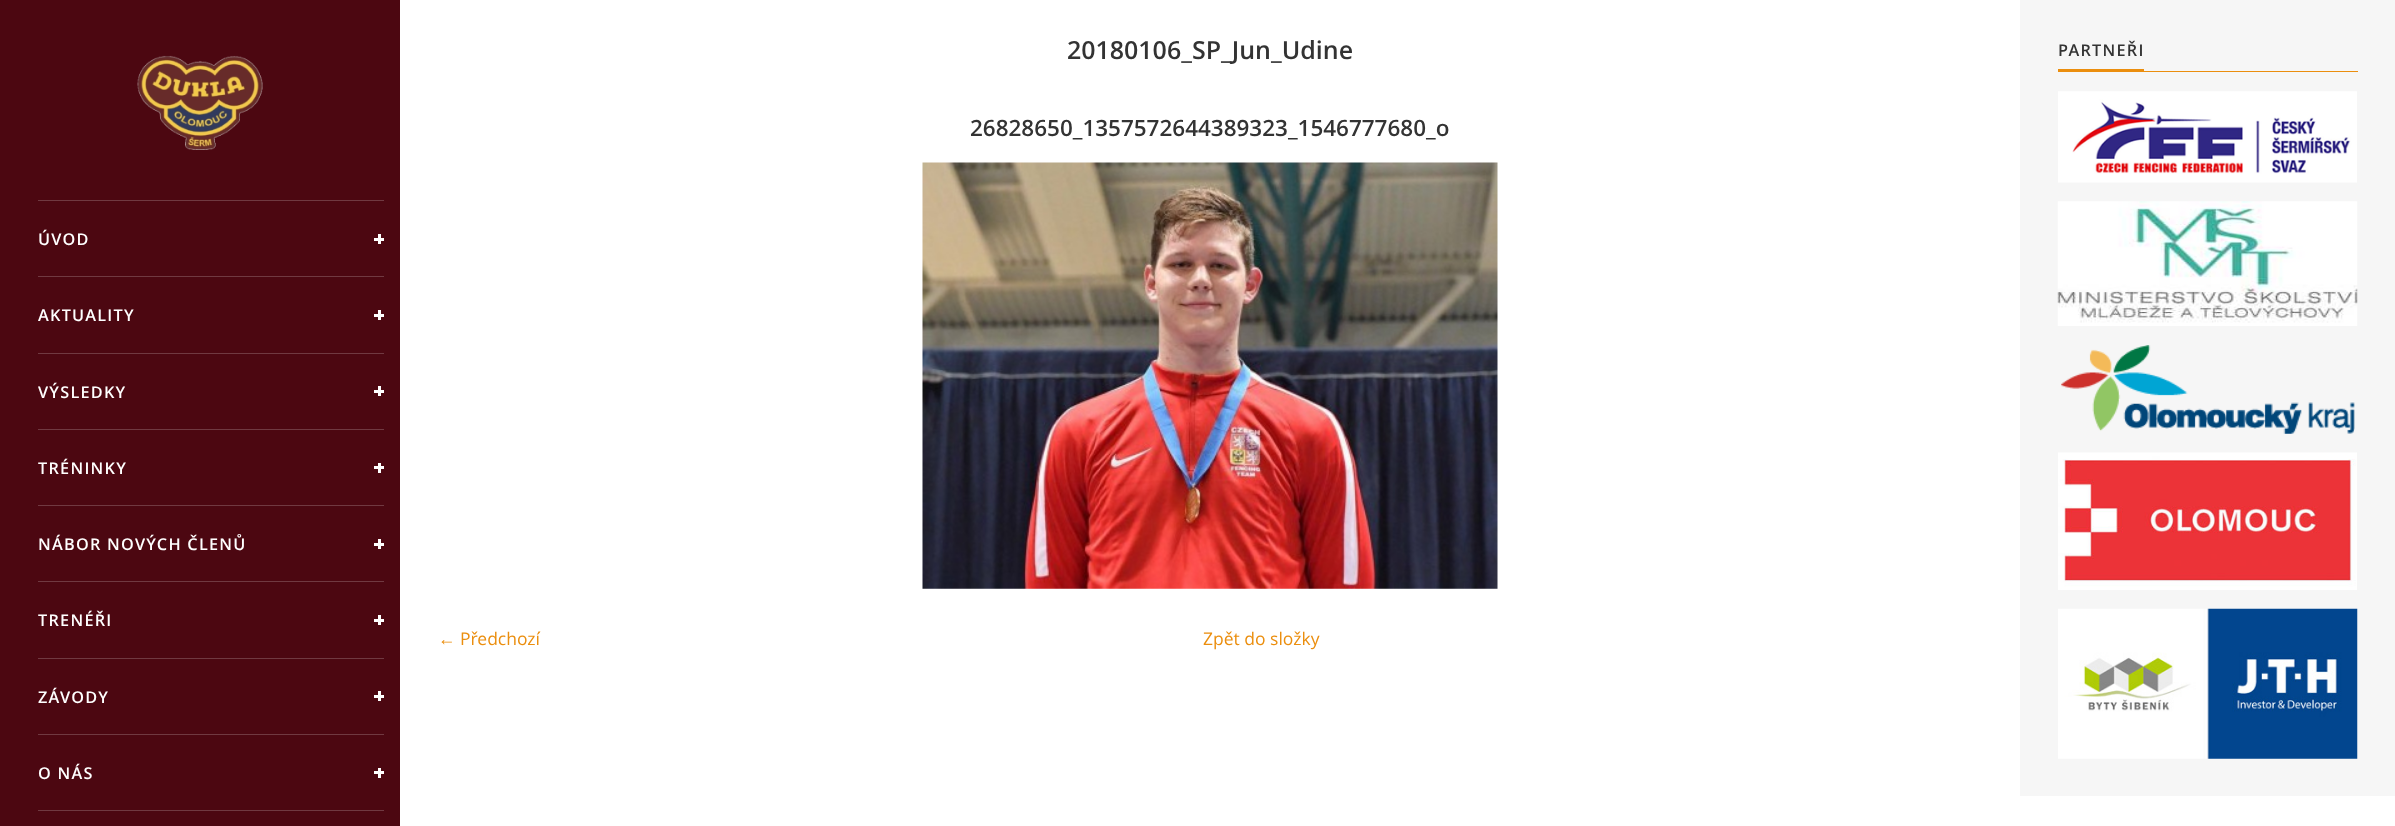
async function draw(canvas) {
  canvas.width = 2395
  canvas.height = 826
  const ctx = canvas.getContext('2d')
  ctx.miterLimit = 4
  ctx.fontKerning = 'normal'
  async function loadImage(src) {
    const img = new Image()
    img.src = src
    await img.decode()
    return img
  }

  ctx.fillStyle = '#fff'
  ctx.fillRect(0, 0, 2395, 826)
  ctx.fillStyle = '#4c0711'
  ctx.fillRect(0, 0, 400, 826)
  ctx.drawImage(await loadImage('image0.png'), 137, 55, 126, 95)
  ctx.fillStyle = '#703941'
  ctx.fillRect(38, 200, 346, 1)
  ctx.letterSpacing = '1.25px'
  ctx.font = '600 16.25px Open Sans'
  ctx.fillStyle = '#fff'
  ctx.fillText('ÚVOD', 38, 245)
  ctx.fillRect(374, 238, 10, 3)
  ctx.fillRect(378, 234, 3, 10)
  ctx.fillStyle = '#703941'
  ctx.fillRect(38, 276, 346, 1)
  ctx.fillStyle = '#fff'
  ctx.fillText('AKTUALITY', 38, 321)
  ctx.fillRect(374, 314, 10, 3)
  ctx.fillRect(378, 310, 3, 10)
  ctx.fillStyle = '#703941'
  ctx.fillRect(38, 353, 346, 1)
  ctx.fillStyle = '#fff'
  ctx.fillText('VÝSLEDKY', 38, 398)
  ctx.fillRect(374, 390, 10, 3)
  ctx.fillRect(378, 386, 3, 10)
  ctx.fillStyle = '#703941'
  ctx.fillRect(38, 429, 346, 1)
  ctx.fillStyle = '#fff'
  ctx.fillText('TRÉNINKY', 38, 474)
  ctx.fillRect(374, 466, 10, 3)
  ctx.fillRect(378, 463, 3, 10)
  ctx.fillStyle = '#703941'
  ctx.fillRect(38, 505, 346, 1)
  ctx.fillStyle = '#fff'
  ctx.fillText('NÁBOR NOVÝCH ČLENŮ', 38, 550)
  ctx.fillRect(374, 543, 10, 3)
  ctx.fillRect(378, 539, 3, 10)
  ctx.fillStyle = '#703941'
  ctx.fillRect(38, 581, 346, 1)
  ctx.fillStyle = '#fff'
  ctx.fillText('TRENÉŘI', 38, 626)
  ctx.fillRect(374, 619, 10, 3)
  ctx.fillRect(378, 615, 3, 10)
  ctx.fillStyle = '#703941'
  ctx.fillRect(38, 658, 346, 1)
  ctx.fillStyle = '#fff'
  ctx.fillText('ZÁVODY', 38, 703)
  ctx.fillRect(374, 695, 10, 3)
  ctx.fillRect(378, 691, 3, 10)
  ctx.fillStyle = '#703941'
  ctx.fillRect(38, 734, 346, 1)
  ctx.fillStyle = '#fff'
  ctx.fillText('O NÁS', 38, 779)
  ctx.fillRect(374, 771, 10, 3)
  ctx.fillRect(378, 768, 3, 10)
  ctx.fillStyle = '#703941'
  ctx.fillRect(38, 810, 346, 1)
  ctx.letterSpacing = '0px'
  ctx.font = '600 25px Open Sans'
  ctx.fillStyle = '#333'
  ctx.fillText('20180106_SP_Jun_Udine', 1067, 59)
  ctx.font = '600 22.5px Open Sans'
  ctx.fillText('26828650_1357572644389323_1546777680_o', 970, 136)
  ctx.drawImage(await loadImage('image1.png'), 922, 162, 576, 427)
  ctx.font = '17.5px Liberation Serif'
  ctx.fillStyle = '#eb8e0e'
  ctx.fillText('←', 438, 645)
  ctx.font = '17.5px Open Sans'
  ctx.fillText('Předchozí', 460, 645)
  ctx.fillText('Zpět do složky', 1203, 645)
  ctx.fillStyle = '#f6f6f6'
  ctx.fillRect(2020, 0, 375, 796)
  ctx.letterSpacing = '1.25px'
  ctx.font = '600 16.25px Open Sans'
  ctx.fillStyle = '#333'
  ctx.fillText('PARTNEŘI', 2058, 56)
  ctx.fillStyle = '#eb8e0e'
  ctx.fillRect(2058, 69, 86, 2)
  ctx.fillRect(2058, 71, 300, 1)
  ctx.drawImage(await loadImage('image2.png'), 2058, 91, 299, 92)
  ctx.drawImage(await loadImage('image3.png'), 2057, 201, 301, 125)
  ctx.drawImage(await loadImage('image4.png'), 2061, 345, 294, 89)
  ctx.drawImage(await loadImage('image5.png'), 2058, 452, 299, 138)
  ctx.drawImage(await loadImage('image6.png'), 2058, 608, 300, 151)
}

draw(document.querySelector('canvas'))
